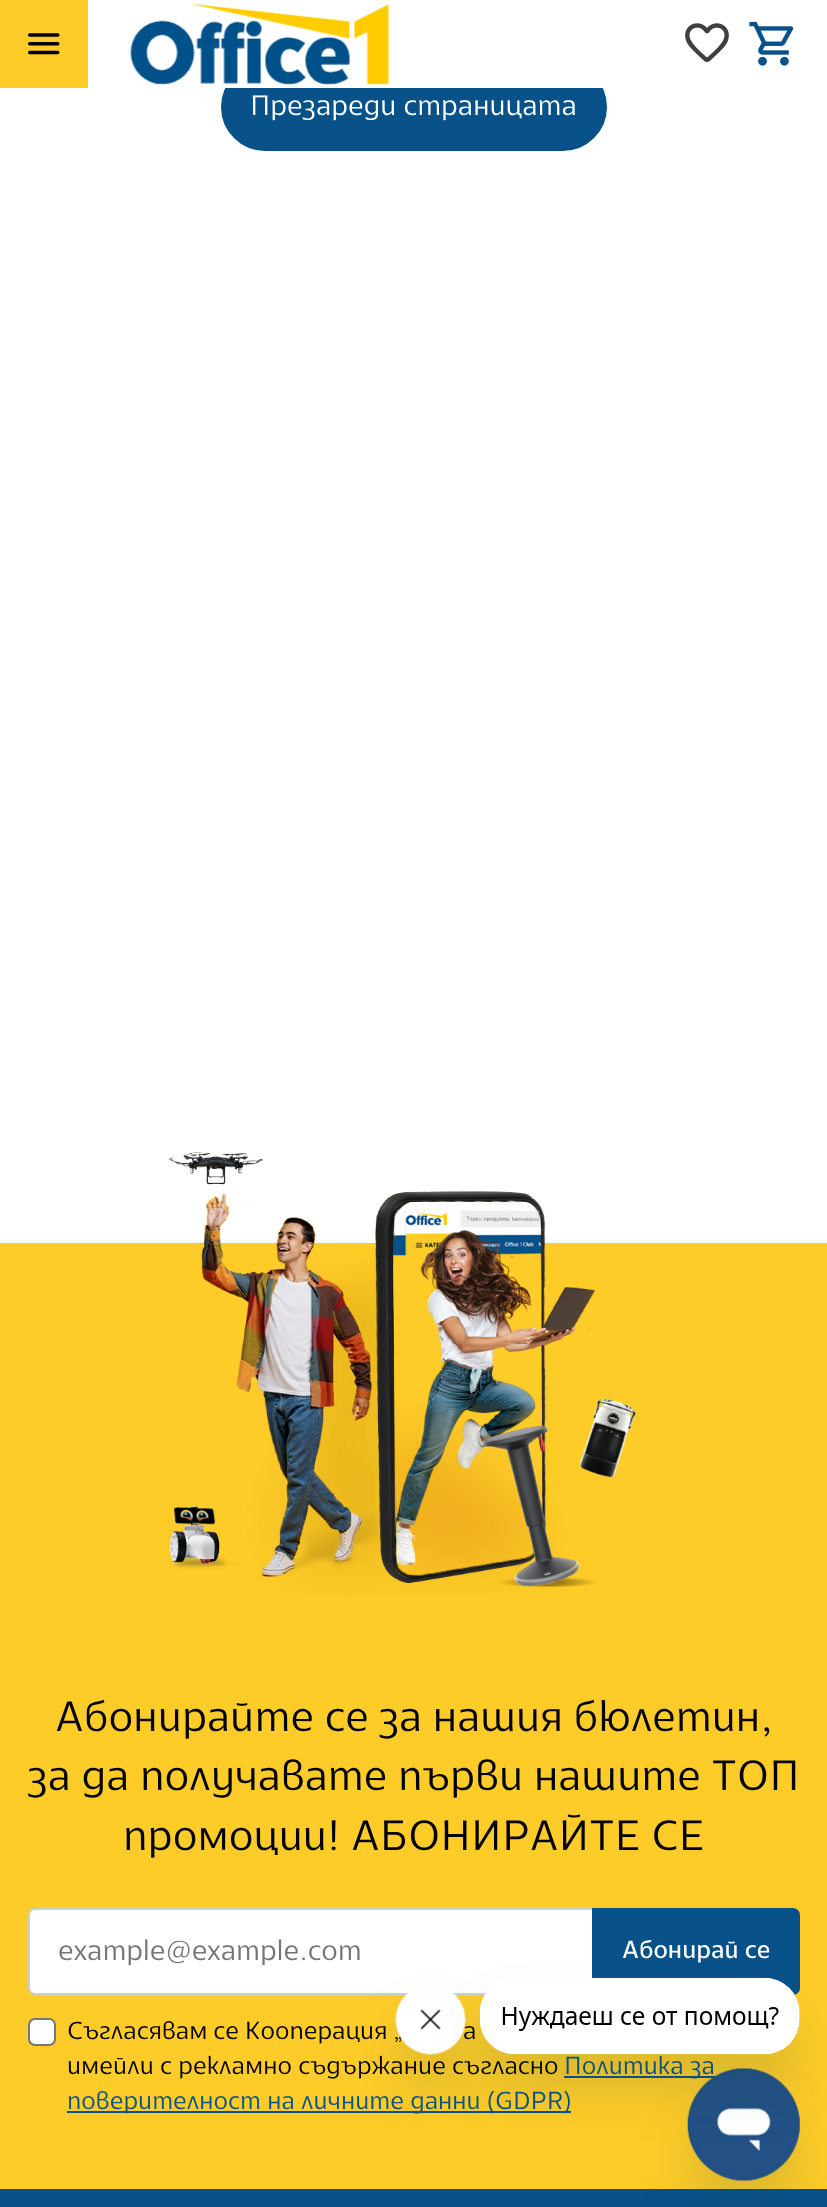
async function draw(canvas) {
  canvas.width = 827
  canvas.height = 2207
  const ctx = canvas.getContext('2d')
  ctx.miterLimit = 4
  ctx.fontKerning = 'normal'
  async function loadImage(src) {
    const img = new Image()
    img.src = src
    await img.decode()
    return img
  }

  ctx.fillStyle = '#fff'
  ctx.fillRect(0, 0, 827, 2207)
  ctx.fillStyle = '#095189'
  ctx.beginPath()
  ctx.roundRect(222, 64, 384, 86, 43)
  ctx.fill()
  ctx.strokeStyle = '#095189'
  ctx.lineWidth = 2
  ctx.stroke()
  ctx.fillStyle = '#fff'
  ctx.fillRect(225, 63, 378, 25)
  ctx.fillStyle = '#fecc28'
  ctx.fillRect(0, 0, 88, 88)
  ctx.drawImage(await loadImage('image0.png'), 28, 33, 32, 22)
  ctx.drawImage(await loadImage('image1.png'), 130, 3, 259, 82)
  ctx.drawImage(await loadImage('image2.png'), 685, 23, 44, 39)
  ctx.drawImage(await loadImage('image3.png'), 749, 21, 45, 45)
  ctx.font = '300 28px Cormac'
  ctx.fillStyle = '#fff'
  ctx.fillText('Презареди страницата', 250, 115)
  ctx.fillStyle = '#fecc28'
  ctx.fillRect(0, 1243, 827, 946)
  ctx.drawImage(await loadImage('image4.png'), 168, 1152, 469, 444)
  ctx.font = '300 42px Cormac'
  ctx.fillStyle = '#000'
  ctx.fillText('Абонирайте се за нашия бюлетин,', 55, 1731)
  ctx.fillText('за да получавате първи нашите ТОП', 28, 1790)
  ctx.fillText('промоции! АБОНИРАЙТЕ СЕ', 123, 1850)
  ctx.fillStyle = '#fff'
  ctx.beginPath()
  ctx.roundRect(29, 1909, 770, 85, 6)
  ctx.fill()
  ctx.strokeStyle = '#cecece'
  ctx.stroke()
  ctx.font = '300 28px Cormac'
  ctx.fillStyle = '#757575'
  ctx.fillText('example@example.com', 58, 1960)
  ctx.fillStyle = '#095189'
  ctx.beginPath()
  ctx.roundRect(593, 1909, 206, 85, [0, 6, 6, 0])
  ctx.fill()
  ctx.strokeStyle = '#095189'
  ctx.stroke()
  ctx.font = '24.5px Cormac'
  ctx.fillStyle = '#fff'
  ctx.fillText('Абонирай се', 622, 1958)
  ctx.beginPath()
  ctx.roundRect(29, 2019, 26, 26, 6)
  ctx.fill()
  ctx.strokeStyle = '#767676'
  ctx.stroke()
  ctx.wordSpacing = '-0.5px'
  ctx.font = '300 24.5px Cormac'
  ctx.fillStyle = '#000'
  ctx.fillText('Съгласявам се Кооперация „', 67, 2039)
  ctx.fillText('а', 463, 2039)
  ctx.wordSpacing = '0px'
  ctx.fillText('имейли с рекламно съдържание съгласно', 67, 2074)
  ctx.fillStyle = '#095189'
  ctx.fillRect(564, 2076, 152, 2)
  ctx.fillText('Политика за', 564, 2074)
  ctx.fillRect(67, 2111, 504, 2)
  ctx.fillText('поверителност на личните данни (GDPR)', 67, 2109)
  ctx.fillRect(0, 2189, 827, 18)
  ctx.fillStyle = '#17494d26'
  ctx.filter = 'blur(26px)'
  ctx.beginPath()
  ctx.roundRect(396, 2020, 70, 70, 35)
  ctx.fill()
  ctx.filter = 'none'
  ctx.drawImage(await loadImage('image6.png'), 395, 1993, 71, 62)
  ctx.filter = 'blur(26px)'
  ctx.beginPath()
  ctx.roundRect(688, 2104, 112, 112, 56)
  ctx.fill()
  ctx.filter = 'none'
  ctx.drawImage(await loadImage('image7.png'), 687, 2068, 113, 113)
  ctx.filter = 'blur(26px)'
  ctx.beginPath()
  ctx.roundRect(480, 2013, 320, 77, 35)
  ctx.fill()
  ctx.filter = 'none'
  ctx.drawImage(await loadImage('image5.png'), 479, 1977, 321, 78)
}

draw(document.querySelector('canvas'))
